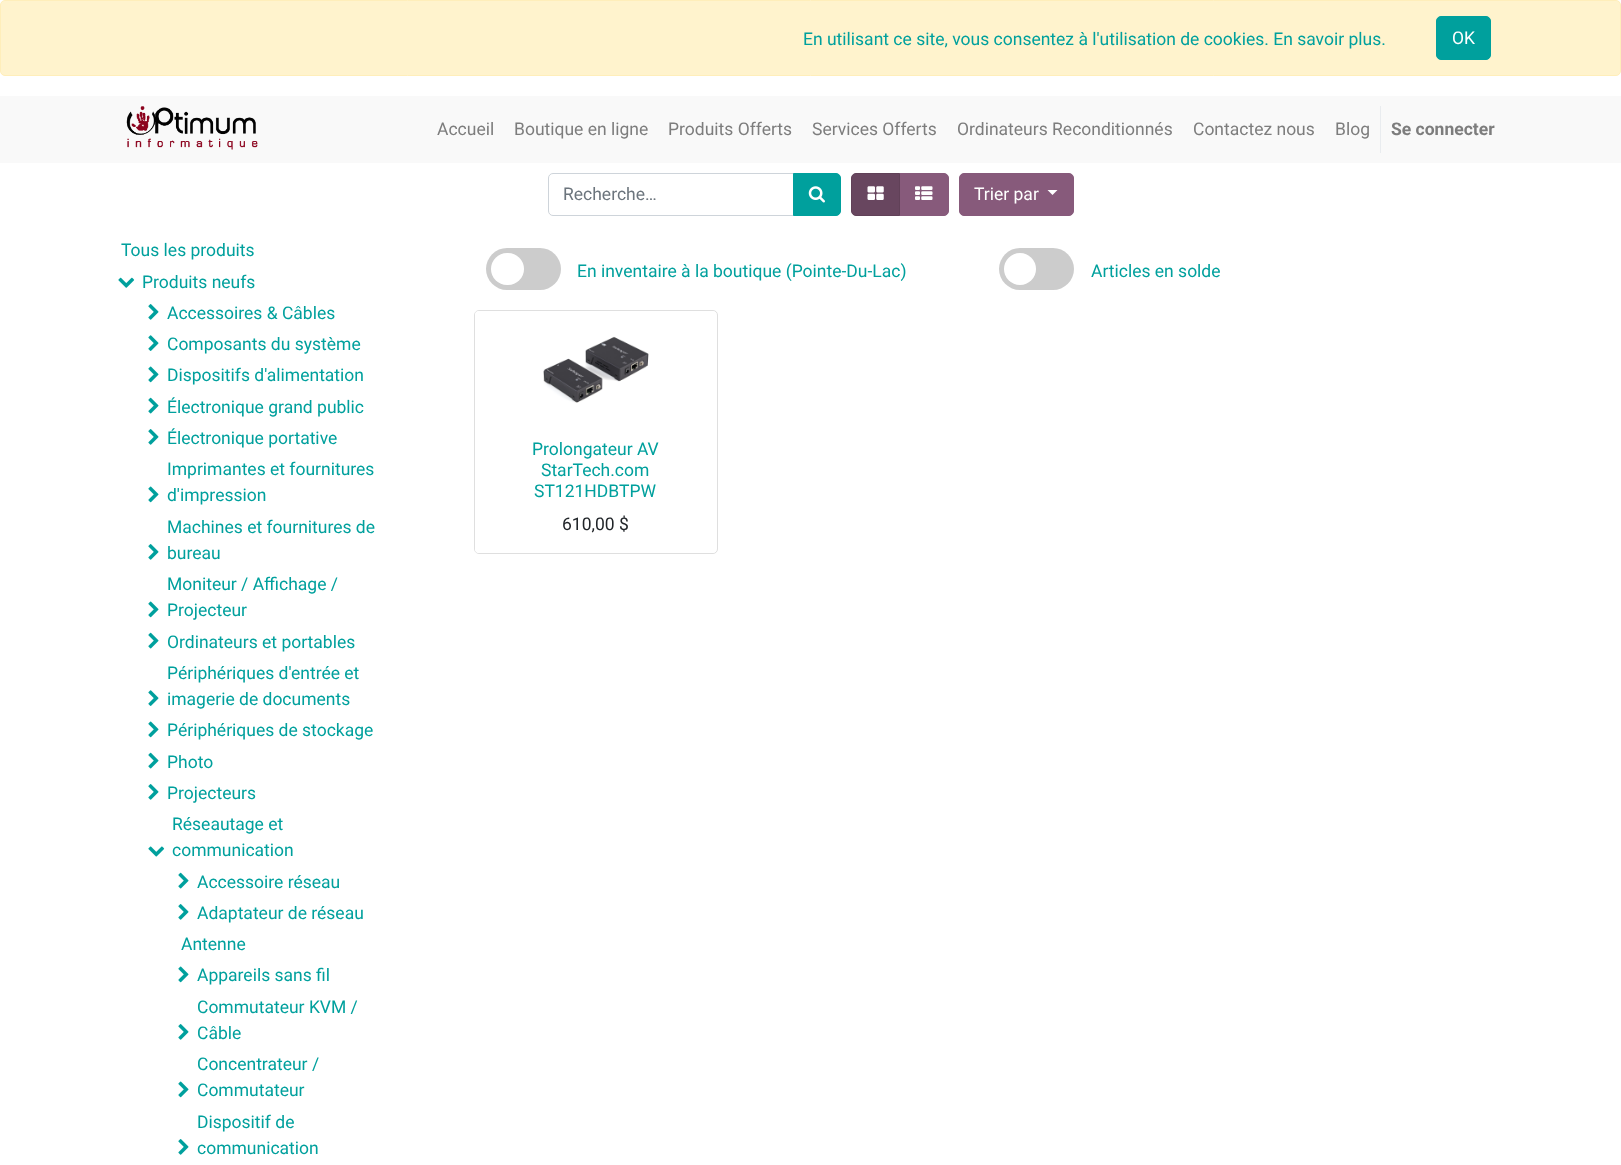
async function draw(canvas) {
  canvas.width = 1621
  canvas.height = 1165
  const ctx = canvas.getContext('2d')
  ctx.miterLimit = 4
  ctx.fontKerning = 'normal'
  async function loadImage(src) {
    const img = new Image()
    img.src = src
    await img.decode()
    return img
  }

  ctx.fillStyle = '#fff'
  ctx.fillRect(0, 0, 1621, 1165)
  ctx.fillStyle = '#fff3cd'
  ctx.beginPath()
  ctx.roundRect(0.5, 0.5, 1620, 75, 4.5)
  ctx.fill()
  ctx.strokeStyle = '#ffeeba'
  ctx.stroke()
  ctx.font = '17.5px Roboto'
  ctx.fillStyle = '#00a09d'
  ctx.fillText('En utilisant ce site, vous consentez à l\'utilisation de cookies. En savoir plus.', 803, 45)
  ctx.beginPath()
  ctx.roundRect(1436.5, 16.5, 54, 43, 4.5)
  ctx.fill()
  ctx.strokeStyle = '#00a09d'
  ctx.stroke()
  ctx.fillStyle = '#fff'
  ctx.fillText('OK', 1452, 44)
  ctx.fillStyle = '#f9f9f9'
  ctx.fillRect(0, 96, 1621, 67)
  ctx.drawImage(await loadImage('image0.png'), 126, 106, 132, 44)
  ctx.fillStyle = '#7d7d7d'
  ctx.fillText('Accueil', 437, 135)
  ctx.fillText('Boutique en ligne', 514, 135)
  ctx.fillText('Produits Offerts', 668, 135)
  ctx.fillText('Services Offerts', 812, 135)
  ctx.fillText('Ordinateurs Reconditionnés', 957, 135)
  ctx.fillText('Contactez nous', 1193, 135)
  ctx.fillText('Blog', 1335, 135)
  ctx.fillStyle = '#e9ecef'
  ctx.fillRect(1380, 106, 1, 47)
  ctx.font = 'bold 17.5px Roboto'
  ctx.fillStyle = '#7d7d7d'
  ctx.fillText('Se connecter', 1391, 135)
  ctx.beginPath()
  ctx.roundRect(548.5, 173.5, 245, 42, [4.5, 0, 0, 4.5])
  ctx.strokeStyle = '#ced4da'
  ctx.stroke()
  ctx.font = '17.5px Roboto'
  ctx.fillStyle = '#6c757d'
  ctx.fillText('Recherche…', 563, 200)
  ctx.fillStyle = '#00a09d'
  ctx.beginPath()
  ctx.roundRect(793.5, 173.5, 47, 42, [0, 4.5, 4.5, 0])
  ctx.fill()
  ctx.strokeStyle = '#00a09d'
  ctx.stroke()
  ctx.drawImage(await loadImage('image1.png'), 808, 186, 17, 17)
  ctx.fillStyle = '#875a7b'
  ctx.beginPath()
  ctx.roundRect(899.5, 173.5, 49, 42, [0, 4.5, 4.5, 0])
  ctx.fill()
  ctx.strokeStyle = '#875a7b'
  ctx.stroke()
  ctx.fillStyle = '#68465f'
  ctx.beginPath()
  ctx.roundRect(851.5, 173.5, 48, 42, [4.5, 0, 0, 4.5])
  ctx.fill()
  ctx.strokeStyle = '#614158'
  ctx.stroke()
  ctx.drawImage(await loadImage('image2.png'), 867, 186, 17, 14)
  ctx.drawImage(await loadImage('image3.png'), 915, 186, 18, 14)
  ctx.fillStyle = '#875a7b'
  ctx.beginPath()
  ctx.roundRect(959.5, 173.5, 114, 42, 4.5)
  ctx.fill()
  ctx.strokeStyle = '#875a7b'
  ctx.stroke()
  ctx.fillStyle = '#fff'
  ctx.fillText('Trier par', 974, 200)
  ctx.beginPath()
  ctx.moveTo(1047.5, 190)
  ctx.lineTo(1057.5, 190)
  ctx.lineTo(1052.5, 195)
  ctx.closePath()
  ctx.fill()
  ctx.fillStyle = '#00a09d'
  ctx.fillText('Tous les produits', 121, 256)
  ctx.drawImage(await loadImage('image4.png'), 118, 277, 17, 11)
  ctx.fillText('Produits neufs', 142, 288)
  ctx.drawImage(await loadImage('image5.png'), 148, 304, 11, 16)
  ctx.fillText('Accessoires & Câbles', 167, 319)
  ctx.drawImage(await loadImage('image6.png'), 148, 335, 11, 16)
  ctx.fillText('Composants du système', 167, 350)
  ctx.drawImage(await loadImage('image7.png'), 148, 366, 11, 17)
  ctx.fillText('Dispositifs d\'alimentation', 167, 381)
  ctx.drawImage(await loadImage('image8.png'), 148, 397, 11, 17)
  ctx.fillText('Électronique grand public', 167, 413)
  ctx.drawImage(await loadImage('image5.png'), 148, 429, 11, 16)
  ctx.fillText('Électronique portative', 167, 444)
  ctx.drawImage(await loadImage('image7.png'), 148, 486, 11, 17)
  ctx.fillText('Imprimantes et fournitures', 167, 475)
  ctx.fillText('d\'impression', 167, 501)
  ctx.drawImage(await loadImage('image5.png'), 148, 544, 11, 16)
  ctx.fillText('Machines et fournitures de', 167, 533)
  ctx.fillText('bureau', 167, 559)
  ctx.drawImage(await loadImage('image7.png'), 148, 601, 11, 17)
  ctx.fillText('Moniteur / Affichage /', 167, 590)
  ctx.fillText('Projecteur', 167, 616)
  ctx.drawImage(await loadImage('image8.png'), 148, 632, 11, 17)
  ctx.fillText('Ordinateurs et portables', 167, 648)
  ctx.drawImage(await loadImage('image6.png'), 148, 690, 11, 16)
  ctx.fillText('Périphériques d\'entrée et', 167, 679)
  ctx.fillText('imagerie de documents', 167, 705)
  ctx.drawImage(await loadImage('image7.png'), 148, 721, 11, 17)
  ctx.fillText('Périphériques de stockage', 167, 736)
  ctx.drawImage(await loadImage('image8.png'), 148, 752, 11, 17)
  ctx.fillText('Photo', 167, 768)
  ctx.drawImage(await loadImage('image5.png'), 148, 784, 11, 16)
  ctx.fillText('Projecteurs', 167, 799)
  ctx.drawImage(await loadImage('image9.png'), 148, 846, 17, 11)
  ctx.fillText('Réseautage et', 172, 830)
  ctx.fillText('communication', 172, 856)
  ctx.drawImage(await loadImage('image8.png'), 178, 872, 11, 17)
  ctx.fillText('Accessoire réseau', 197, 888)
  ctx.drawImage(await loadImage('image5.png'), 178, 904, 11, 16)
  ctx.fillText('Adaptateur de réseau', 197, 919)
  ctx.fillText('Antenne', 181, 950)
  ctx.drawImage(await loadImage('image7.png'), 178, 966, 11, 17)
  ctx.fillText('Appareils sans fil', 197, 981)
  ctx.drawImage(await loadImage('image5.png'), 178, 1024, 11, 16)
  ctx.fillText('Commutateur KVM /', 197, 1013)
  ctx.fillText('Câble', 197, 1039)
  ctx.drawImage(await loadImage('image7.png'), 178, 1081, 11, 17)
  ctx.fillText('Concentrateur /', 197, 1070)
  ctx.fillText('Commutateur', 197, 1096)
  ctx.drawImage(await loadImage('image5.png'), 178, 1139, 11, 16)
  ctx.fillText('Dispositif de', 197, 1128)
  ctx.fillText('communication', 197, 1154)
  ctx.fillStyle = '#ccc'
  ctx.beginPath()
  ctx.roundRect(486, 248, 75, 42, 21)
  ctx.fill()
  ctx.fillStyle = '#fff'
  ctx.beginPath()
  ctx.roundRect(491, 253, 33, 32, 16)
  ctx.fill()
  ctx.fillStyle = '#00a09d'
  ctx.fillText('En inventaire à la boutique (Pointe-Du-Lac)', 577, 277)
  ctx.fillStyle = '#ccc'
  ctx.beginPath()
  ctx.roundRect(999, 248, 75, 42, 21)
  ctx.fill()
  ctx.fillStyle = '#fff'
  ctx.beginPath()
  ctx.arc(1020, 269, 16, 0, 2 * Math.PI)
  ctx.fill()
  ctx.fillStyle = '#00a09d'
  ctx.fillText('Articles en solde', 1091, 277)
  ctx.beginPath()
  ctx.roundRect(474.5, 310.5, 243, 243, 4.5)
  ctx.strokeStyle = '#dfdfdf'
  ctx.stroke()
  ctx.fillStyle = '#ffffffe6'
  ctx.beginPath()
  ctx.roundRect(475, 311, 241, 118, [4, 4, 0, 0])
  ctx.fill()
  ctx.drawImage(await loadImage('image10.png'), 543, 336, 106, 67)
  ctx.beginPath()
  ctx.roundRect(475, 429, 241, 124, [0, 0, 4, 4])
  ctx.fill()
  ctx.fillStyle = '#00a09d'
  ctx.fillText('Prolongateur AV', 532, 455)
  ctx.fillText('StarTech.com', 541, 476)
  ctx.fillText('ST121HDBTPW', 534, 497)
  ctx.fillStyle = '#212529'
  ctx.fillText('610,00 $', 562, 530)
}

draw(document.querySelector('canvas'))
